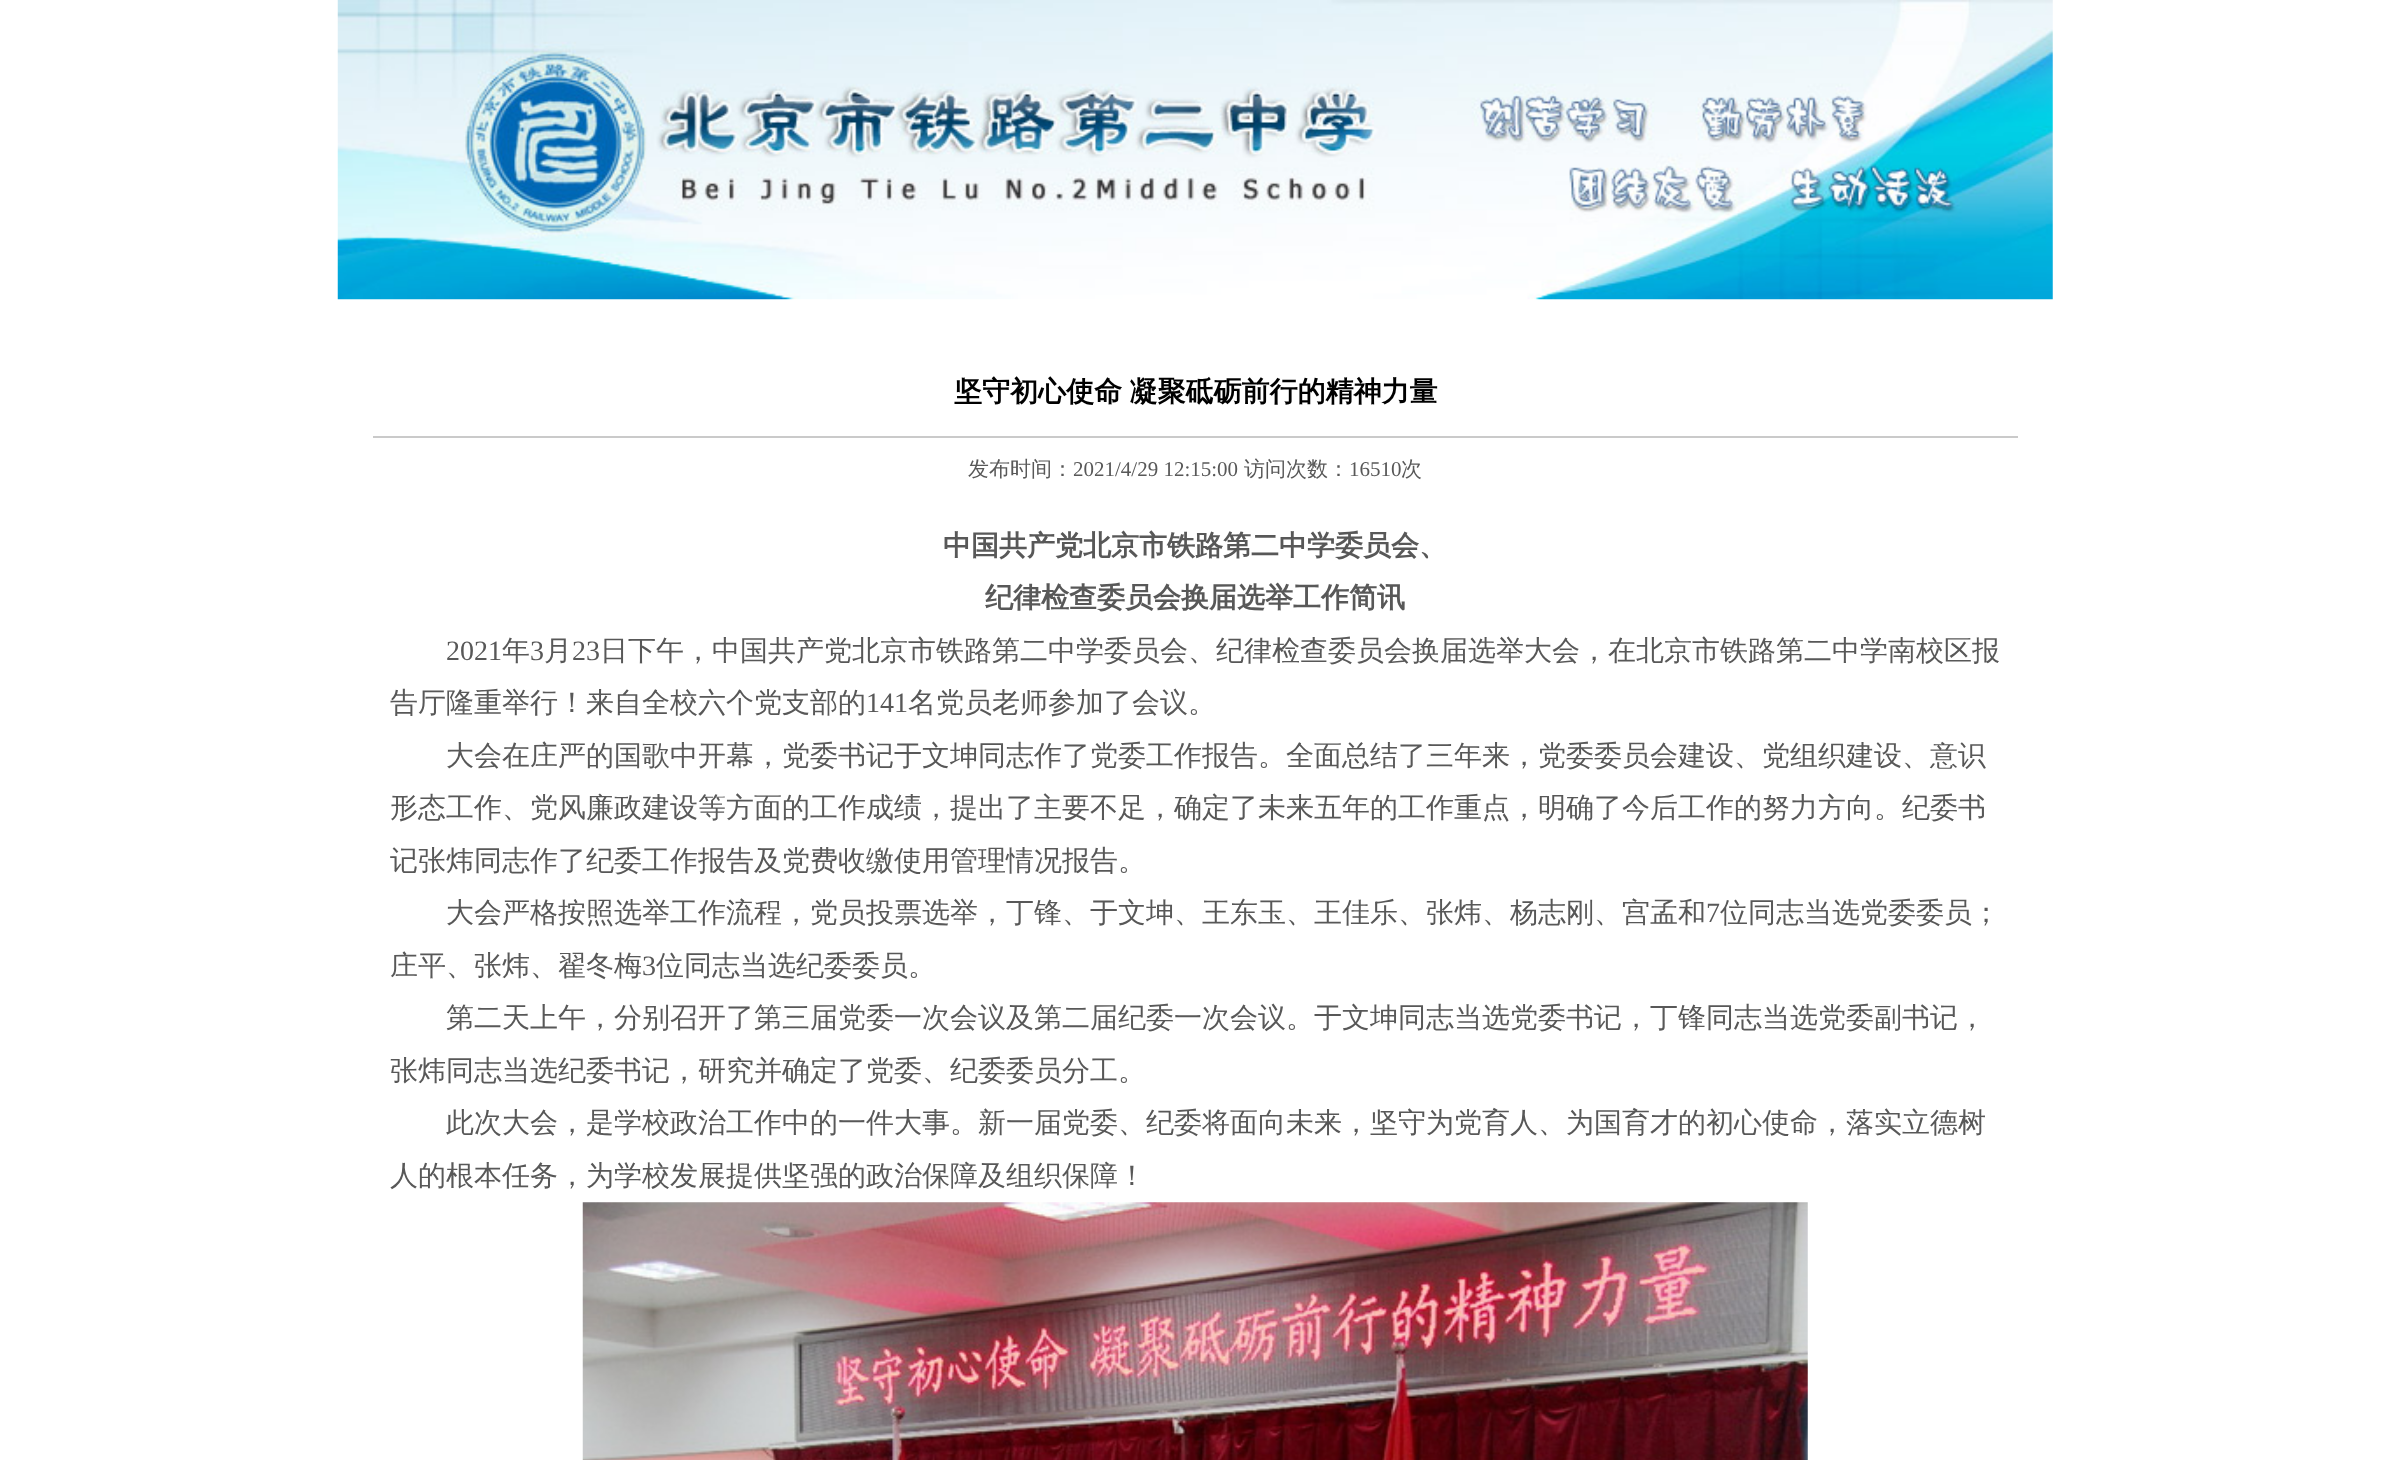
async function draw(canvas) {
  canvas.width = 2390
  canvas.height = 1460
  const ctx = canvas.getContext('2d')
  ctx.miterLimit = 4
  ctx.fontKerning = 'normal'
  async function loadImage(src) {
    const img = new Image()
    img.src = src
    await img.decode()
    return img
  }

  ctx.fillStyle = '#fff'
  ctx.fillRect(0, 0, 2390, 1460)
  ctx.drawImage(await loadImage('image0.png'), 337, 0, 1716, 300)
  ctx.fillStyle = '#cacaca'
  ctx.fillRect(373, 436, 1645, 2)
  ctx.wordSpacing = '-1px'
  ctx.font = 'bold 28px WenQuanYi Zen Hei'
  ctx.fillStyle = '#000'
  ctx.fillText('坚守初心使命 凝聚砥砺前行的精神力量', 954, 401)
  ctx.wordSpacing = '0px'
  ctx.font = '500 21px WenQuanYi Zen Hei'
  ctx.fillStyle = '#585858'
  ctx.fillText('发布时间：', 968, 476)
  ctx.font = '21px Liberation Serif'
  ctx.fillText('2021/4/29 12:15:00', 1073, 476)
  ctx.font = '500 21px WenQuanYi Zen Hei'
  ctx.fillText('访问次数：', 1244, 476)
  ctx.font = '21px Liberation Serif'
  ctx.fillText('16510', 1349, 476)
  ctx.font = '500 21px WenQuanYi Zen Hei'
  ctx.fillText('次', 1401, 476)
  ctx.font = 'bold 28px WenQuanYi Zen Hei'
  ctx.fillText('中国共产党北京市铁路第二中学委员会、', 943, 555)
  ctx.fillText('纪律检查委员会换届选举工作简讯', 985, 607)
  ctx.font = '28px Liberation Serif'
  ctx.fillText('2021', 446, 660)
  ctx.font = '500 28px WenQuanYi Zen Hei'
  ctx.fillText('年', 502, 660)
  ctx.font = '28px Liberation Serif'
  ctx.fillText('3', 530, 660)
  ctx.font = '500 28px WenQuanYi Zen Hei'
  ctx.fillText('月', 544, 660)
  ctx.font = '28px Liberation Serif'
  ctx.fillText('23', 572, 660)
  ctx.font = '500 28px WenQuanYi Zen Hei'
  ctx.fillText('日下午，中国共产党北京市铁路第二中学委员会、纪律检查委员会换届选举大会，在北京市铁路第二中学南校区报', 600, 660)
  ctx.fillText('告厅隆重举行！来自全校六个党支部的', 390, 712)
  ctx.font = '28px Liberation Serif'
  ctx.fillText('141', 866, 712)
  ctx.font = '500 28px WenQuanYi Zen Hei'
  ctx.fillText('名党员老师参加了会议。', 908, 712)
  ctx.fillText('大会在庄严的国歌中开幕，党委书记于文坤同志作了党委工作报告。全面总结了三年来，党委委员会建设、党组织建设、意识', 446, 765)
  ctx.fillText('形态工作、党风廉政建设等方面的工作成绩，提出了主要不足，确定了未来五年的工作重点，明确了今后工作的努力方向。纪委书', 390, 817)
  ctx.fillText('记张炜同志作了纪委工作报告及党费收缴使用管理情况报告。', 390, 870)
  ctx.fillText('大会严格按照选举工作流程，党员投票选举，丁锋、于文坤、王东玉、王佳乐、张炜、杨志刚、宫孟和', 446, 922)
  ctx.font = '28px Liberation Serif'
  ctx.fillText('7', 1706, 922)
  ctx.font = '500 28px WenQuanYi Zen Hei'
  ctx.fillText('位同志当选党委委员；', 1720, 922)
  ctx.fillText('庄平、张炜、翟冬梅', 390, 975)
  ctx.font = '28px Liberation Serif'
  ctx.fillText('3', 642, 975)
  ctx.font = '500 28px WenQuanYi Zen Hei'
  ctx.fillText('位同志当选纪委委员。', 656, 975)
  ctx.fillText('第二天上午，分别召开了第三届党委一次会议及第二届纪委一次会议。于文坤同志当选党委书记，丁锋同志当选党委副书记，', 446, 1027)
  ctx.fillText('张炜同志当选纪委书记，研究并确定了党委、纪委委员分工。', 390, 1080)
  ctx.fillText('此次大会，是学校政治工作中的一件大事。新一届党委、纪委将面向未来，坚守为党育人、为国育才的初心使命，落实立德树', 446, 1132)
  ctx.fillText('人的根本任务，为学校发展提供坚强的政治保障及组织保障！', 390, 1185)
  ctx.drawImage(await loadImage('image1.png'), 582, 1202, 1226, 258)
}

draw(document.querySelector('canvas'))
